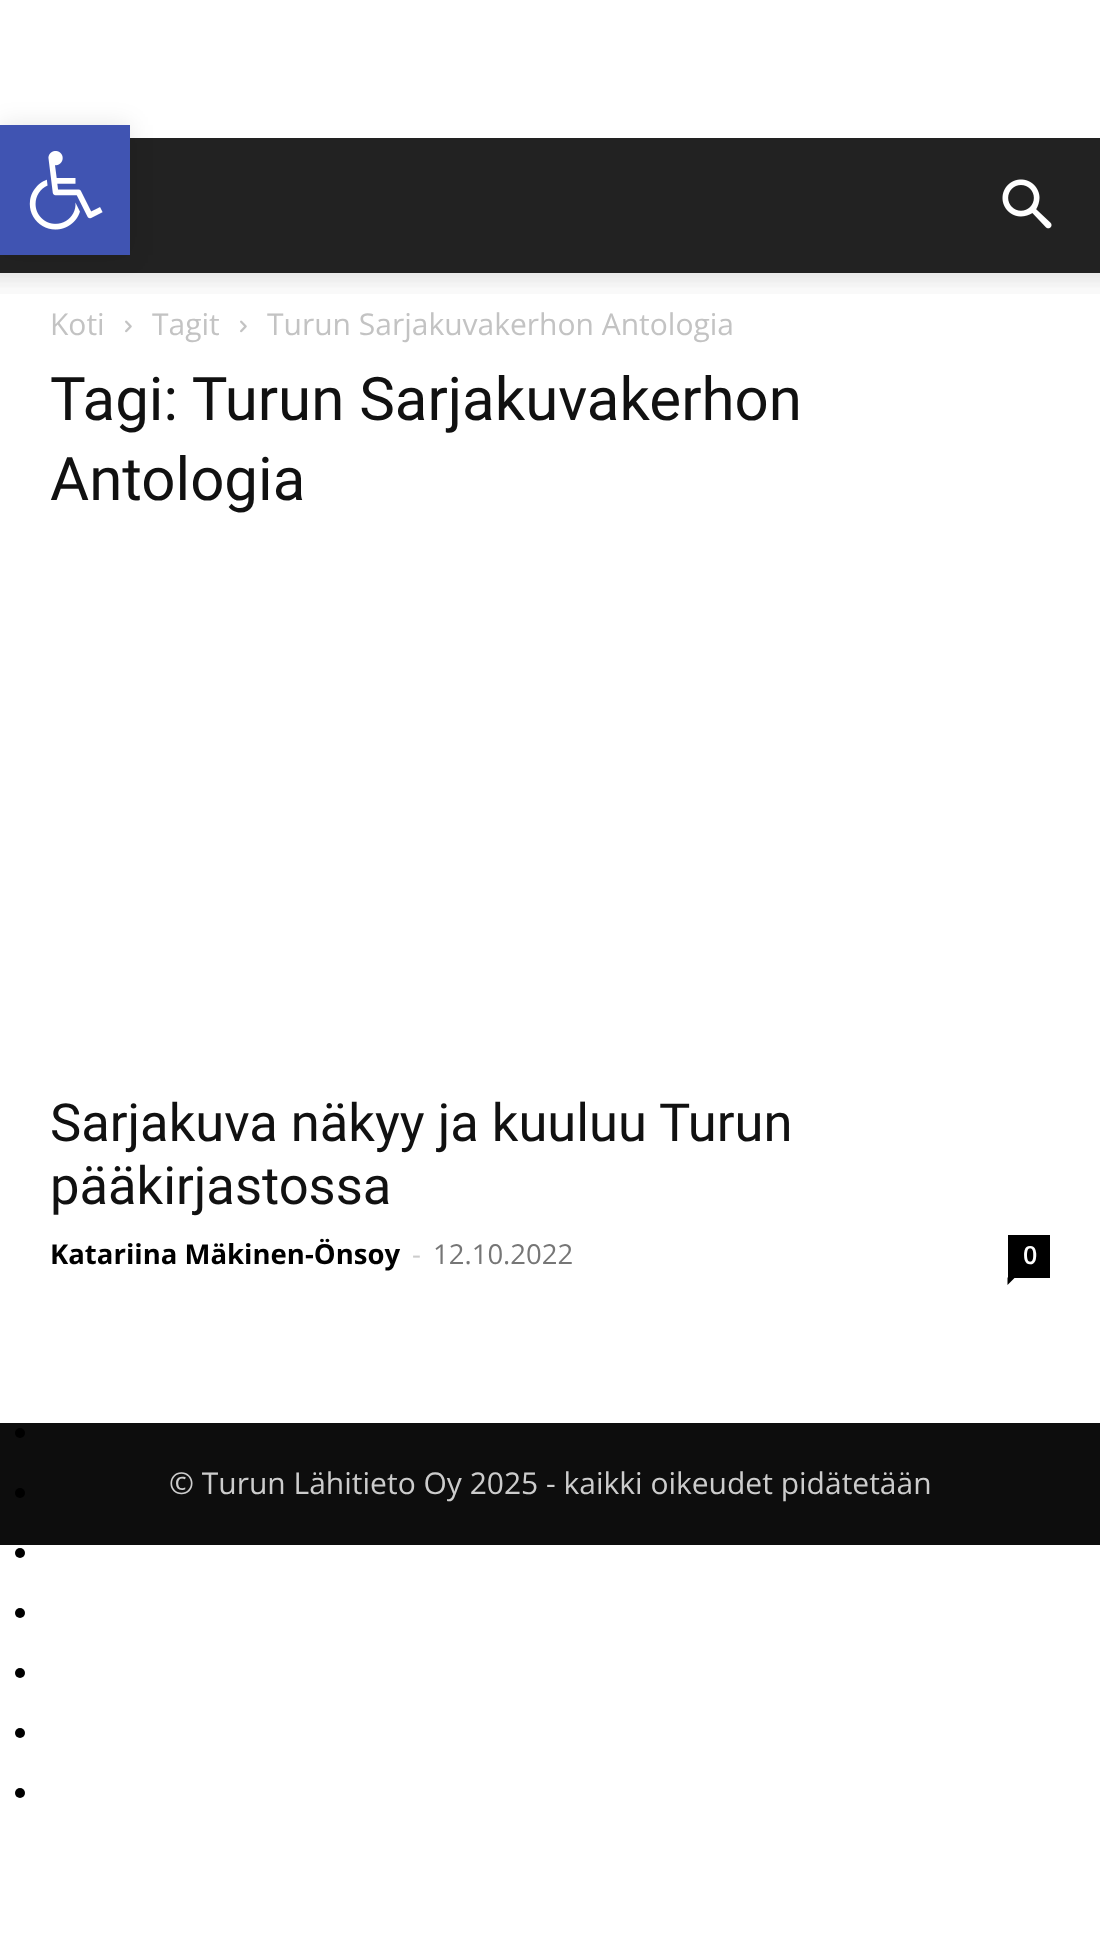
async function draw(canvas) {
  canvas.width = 1100
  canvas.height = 1948
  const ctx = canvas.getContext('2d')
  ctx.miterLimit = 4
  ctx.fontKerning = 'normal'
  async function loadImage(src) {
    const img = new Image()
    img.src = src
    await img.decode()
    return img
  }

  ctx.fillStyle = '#fff'
  ctx.fillRect(0, 0, 1100, 1948)
  ctx.fillStyle = '#222'
  ctx.fillRect(0, 138, 1100, 135)
  ctx.drawImage(await loadImage('image2.png'), 0, 273, 1100, 21)
  ctx.fillStyle = '#0000001a'
  ctx.filter = 'blur(12.5px)'
  ctx.beginPath()
  ctx.rect(0, 125, 130, 130)
  ctx.fill()
  ctx.filter = 'none'
  ctx.fillStyle = '#4054b2'
  ctx.fillRect(0, 125, 130, 130)
  ctx.drawImage(await loadImage('image0.png'), 29, 151, 74, 79)
  ctx.drawImage(await loadImage('image1.png'), 1002, 179, 50, 50)
  ctx.font = '30px Open Sans'
  ctx.fillStyle = '#c3c3c3'
  ctx.fillText('Koti', 50, 335)
  ctx.drawImage(await loadImage('image3.png'), 125, 320, 7, 13)
  ctx.fillText('Tagit', 152, 335)
  ctx.drawImage(await loadImage('image3.png'), 240, 320, 7, 13)
  ctx.fillText('Turun Sarjakuvakerhon Antologia', 267, 335)
  ctx.font = '60px Roboto'
  ctx.fillStyle = '#111'
  ctx.fillText('Tagi: Turun Sarjakuvakerhon', 50, 420)
  ctx.fillText('Antologia', 50, 500)
  ctx.font = '52.5px Roboto'
  ctx.fillText('Sarjakuva näkyy ja kuuluu Turun', 50, 1141)
  ctx.fillText('pääkirjastossa', 50, 1204)
  ctx.font = 'bold 27.5px Open Sans'
  ctx.fillStyle = '#000'
  ctx.fillText('Katariina Mäkinen-Önsoy', 50, 1264)
  ctx.font = '27.5px Open Sans'
  ctx.fillStyle = '#ccc'
  ctx.fillText('-', 412, 1264)
  ctx.fillStyle = '#767676'
  ctx.fillText('12.10.2022', 433, 1264)
  ctx.fillStyle = '#000'
  ctx.fillRect(1008, 1235, 42, 43)
  ctx.font = '600 25px Open Sans'
  ctx.fillStyle = '#fff'
  ctx.fillText('0', 1023, 1264)
  ctx.fillStyle = '#000'
  ctx.beginPath()
  ctx.moveTo(1007.5, 1277.5)
  ctx.lineTo(1015, 1277.5)
  ctx.lineTo(1007.5, 1285)
  ctx.closePath()
  ctx.fill()
  ctx.fillStyle = '#0d0d0d'
  ctx.fillRect(0, 1423, 1100, 122)
  ctx.font = '30px Open Sans'
  ctx.fillStyle = '#ccc'
  ctx.fillText('© Turun Lähitieto Oy 2025 - kaikki oikeudet pidätetään', 169, 1494)
  ctx.fillStyle = '#000'
  ctx.beginPath()
  ctx.arc(20, 1433, 5, 0, 2 * Math.PI)
  ctx.fill()
  ctx.beginPath()
  ctx.arc(20, 1493, 5, 0, 2 * Math.PI)
  ctx.fill()
  ctx.beginPath()
  ctx.arc(20, 1553, 5, 0, 2 * Math.PI)
  ctx.fill()
  ctx.beginPath()
  ctx.arc(20, 1613, 5, 0, 2 * Math.PI)
  ctx.fill()
  ctx.beginPath()
  ctx.arc(20, 1673, 5, 0, 2 * Math.PI)
  ctx.fill()
  ctx.beginPath()
  ctx.arc(20, 1733, 5, 0, 2 * Math.PI)
  ctx.fill()
  ctx.beginPath()
  ctx.arc(20, 1793, 5, 0, 2 * Math.PI)
  ctx.fill()
}

draw(document.querySelector('canvas'))
